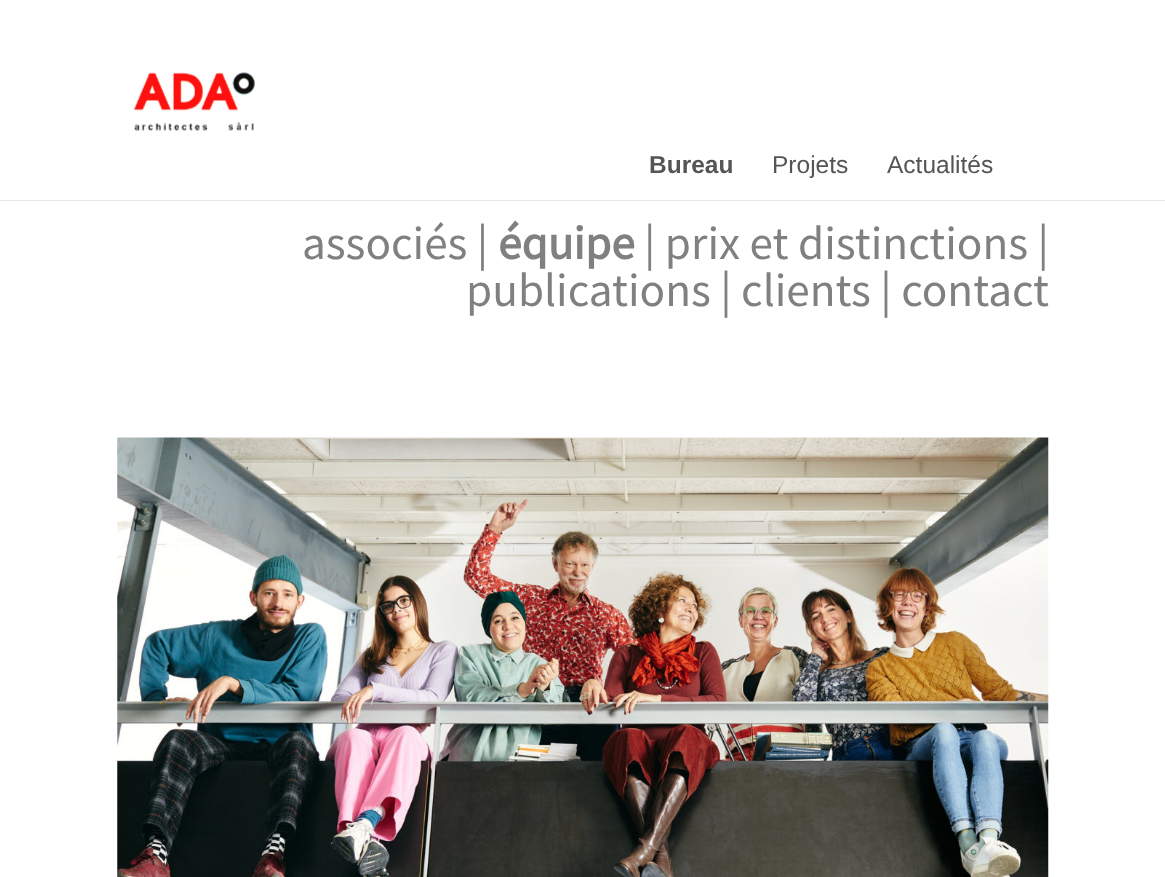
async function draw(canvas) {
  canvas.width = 1165
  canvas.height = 877
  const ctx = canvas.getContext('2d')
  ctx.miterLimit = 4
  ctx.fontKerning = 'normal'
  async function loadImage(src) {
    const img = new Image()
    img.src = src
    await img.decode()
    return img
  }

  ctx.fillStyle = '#fff'
  ctx.fillRect(0, 0, 1165, 877)
  ctx.fillStyle = '#e6e6e6'
  ctx.beginPath()
  ctx.moveTo(0, 200)
  ctx.lineTo(0, 201)
  ctx.lineTo(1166, 201)
  ctx.lineTo(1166, 2)
  ctx.lineTo(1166, 200)
  ctx.closePath()
  ctx.fill()
  ctx.drawImage(await loadImage('image0.png'), 133, 72, 122, 59)
  ctx.font = 'bold 24.5px Liberation Sans'
  ctx.fillStyle = '#555'
  ctx.fillText('Bureau', 649, 173)
  ctx.font = '24.5px Liberation Sans'
  ctx.fillText('Projets', 772, 173)
  ctx.fillText('Actualités', 887, 173)
  ctx.font = '47.25px Source Sans Pro'
  ctx.fillStyle = '#808080'
  ctx.fillText('associés |', 302, 259)
  ctx.font = 'bold 47.25px Source Sans Pro'
  ctx.fillText('équipe', 498, 259)
  ctx.font = '47.25px Source Sans Pro'
  ctx.fillText('| prix et distinctions |', 644, 259)
  ctx.fillText('publications | clients | contact', 466, 306)
  ctx.drawImage(await loadImage('image1.png'), 117, 437, 932, 440)
}

draw(document.querySelector('canvas'))
